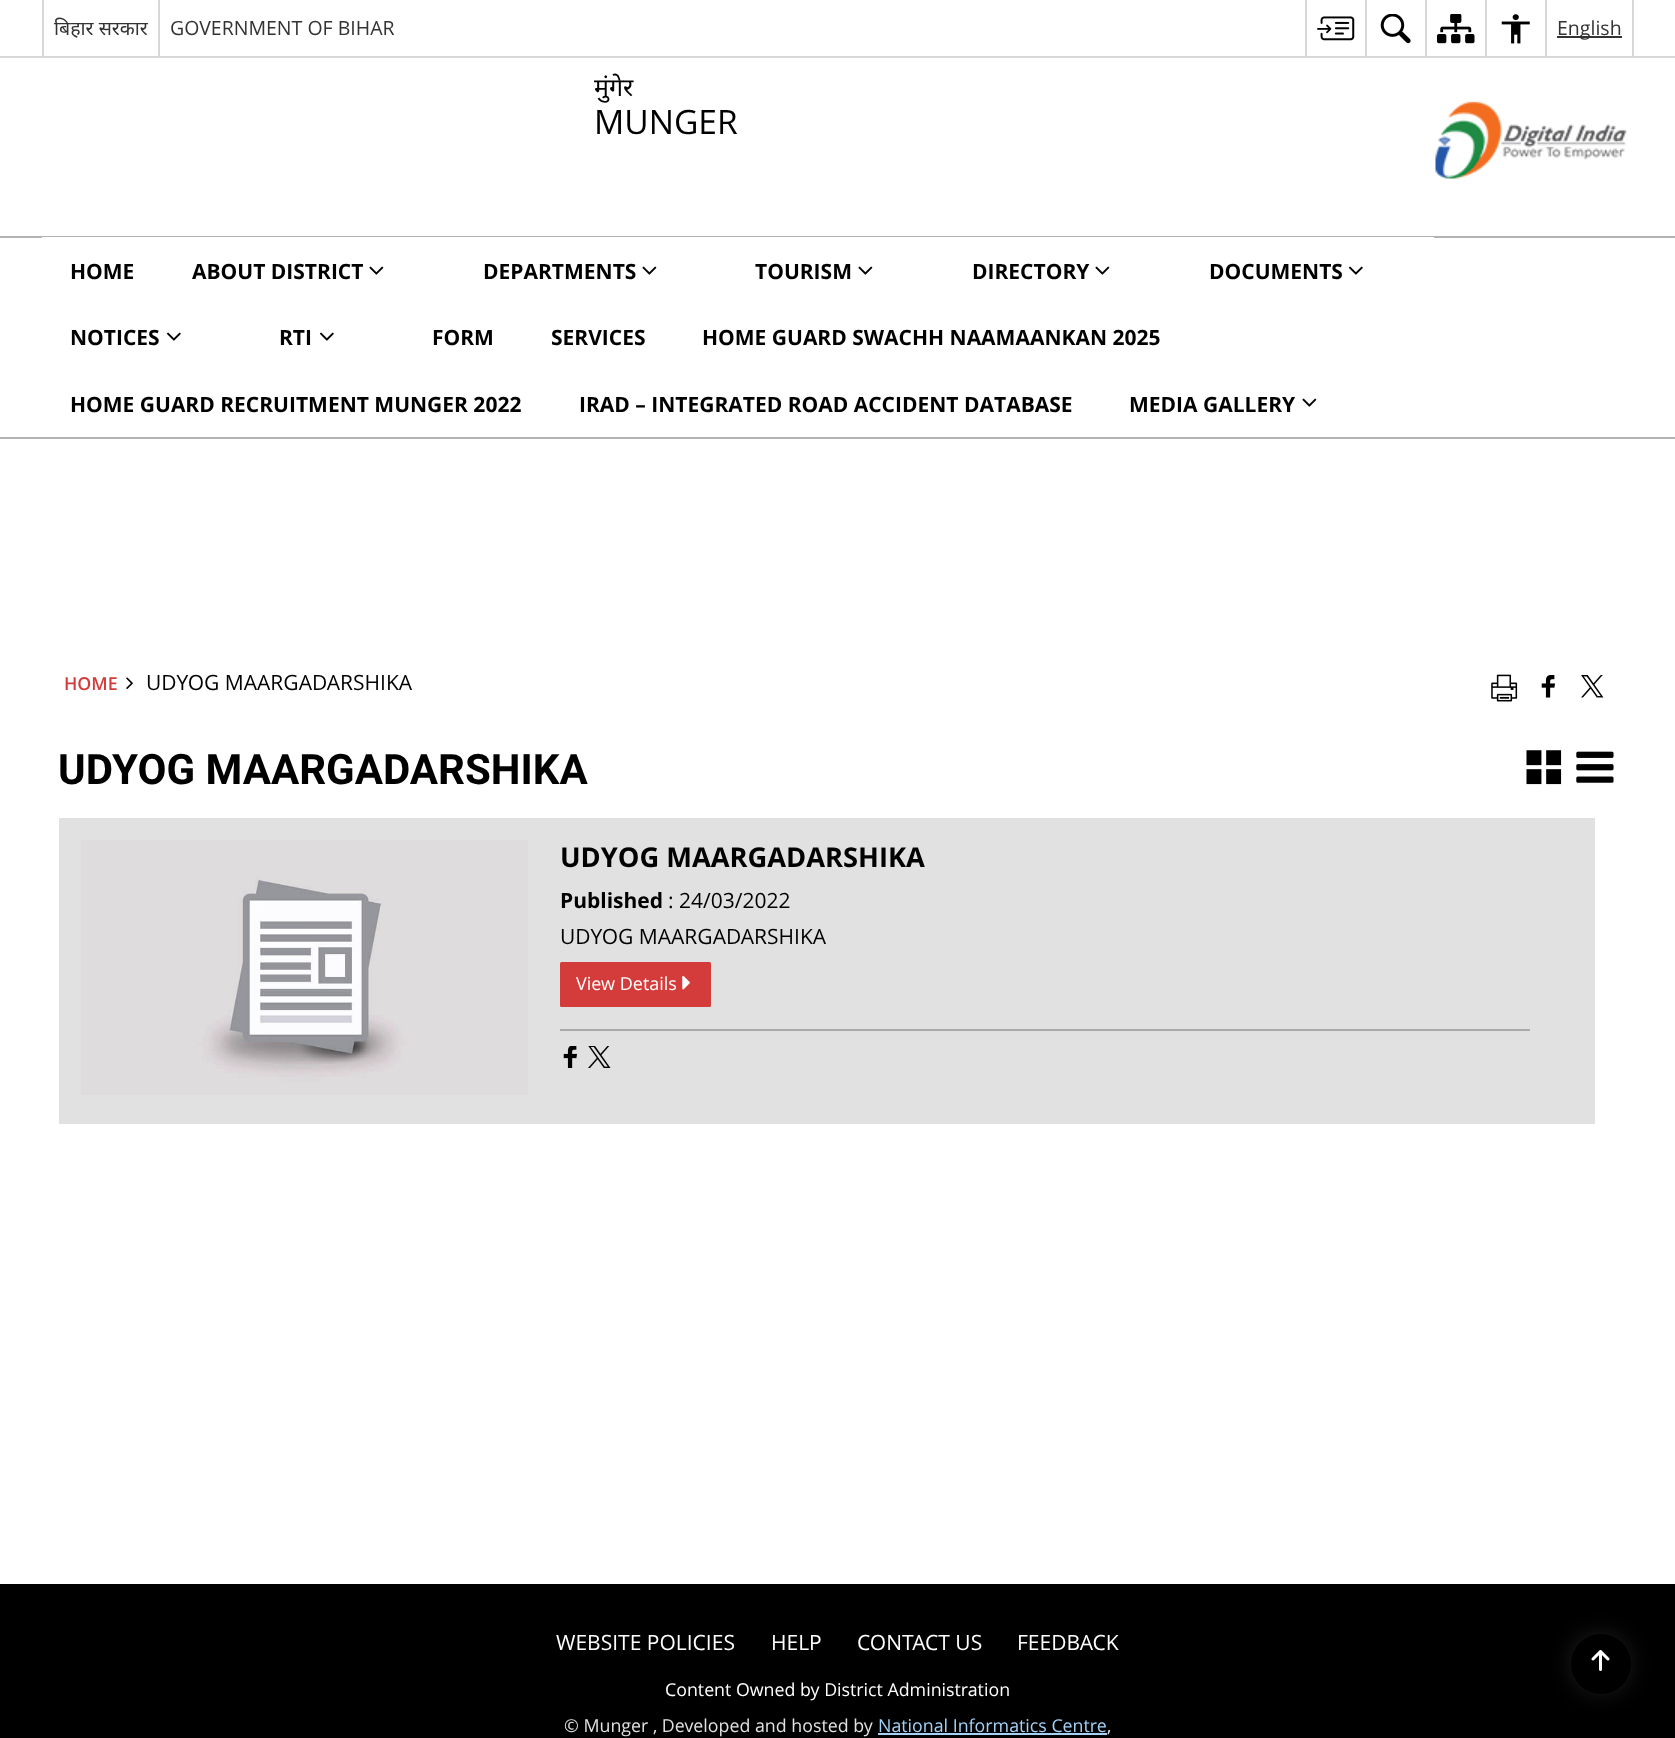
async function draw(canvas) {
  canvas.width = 1675
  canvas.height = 1738
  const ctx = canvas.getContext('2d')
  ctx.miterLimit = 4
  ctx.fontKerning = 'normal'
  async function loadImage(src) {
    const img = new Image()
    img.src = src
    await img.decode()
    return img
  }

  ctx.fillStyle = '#fff'
  ctx.fillRect(0, 0, 1675, 1738)
  ctx.fillStyle = '#d8d8d8'
  ctx.fillRect(0, 56, 1675, 2)
  ctx.fillRect(42, 0, 2, 56)
  ctx.font = '19.5px Noto Sans'
  ctx.fillStyle = '#333'
  ctx.fillText('बिहार सरकार', 54, 35)
  ctx.fillStyle = '#d8d8d8'
  ctx.fillRect(158, 0, 2, 56)
  ctx.font = '19.5px Open Sans'
  ctx.fillStyle = '#333'
  ctx.fillText('GOVERNMENT OF BIHAR', 170, 35)
  ctx.fillStyle = '#d8d8d8'
  ctx.fillRect(1305, 0, 2, 56)
  ctx.drawImage(await loadImage('image0.png'), 1317, 16, 38, 25)
  ctx.fillRect(1365, 0, 2, 56)
  ctx.drawImage(await loadImage('image1.png'), 1380, 14, 31, 30)
  ctx.fillRect(1425, 0, 2, 56)
  ctx.drawImage(await loadImage('image2.png'), 1437, 14, 38, 30)
  ctx.fillRect(1485, 0, 2, 56)
  ctx.drawImage(await loadImage('image3.png'), 1501, 14, 29, 30)
  ctx.fillRect(1632, 0, 2, 56)
  ctx.fillRect(1545, 0, 2, 56)
  ctx.fillStyle = '#333'
  ctx.fillRect(1557, 36, 65, 2)
  ctx.fillText('English', 1557, 35)
  ctx.font = '25px Noto Sans'
  ctx.fillStyle = '#000'
  ctx.fillText('मुंगेर', 594, 96)
  ctx.font = '33.5px Open Sans'
  ctx.fillText('MUNGER', 594, 134)
  ctx.drawImage(await loadImage('image4.png'), 1435, 101, 192, 78)
  ctx.fillStyle = '#b3b3b3'
  ctx.fillRect(0, 236, 1675, 2)
  ctx.fillRect(0, 437, 1675, 2)
  ctx.fillStyle = '#fff'
  ctx.fillRect(42, 237, 1392, 1)
  ctx.font = 'bold 21px Open Sans'
  ctx.fillStyle = '#000'
  ctx.fillText('HOME', 70, 279)
  ctx.fillText('ABOUT DISTRICT', 192, 279)
  ctx.drawImage(await loadImage('image5.png'), 369, 266, 15, 9)
  ctx.fillText('DEPARTMENTS', 483, 279)
  ctx.drawImage(await loadImage('image5.png'), 642, 266, 15, 9)
  ctx.fillText('TOURISM', 755, 279)
  ctx.drawImage(await loadImage('image5.png'), 858, 266, 15, 9)
  ctx.fillText('DIRECTORY', 972, 279)
  ctx.drawImage(await loadImage('image5.png'), 1095, 266, 15, 9)
  ctx.fillText('DOCUMENTS', 1209, 279)
  ctx.drawImage(await loadImage('image6.png'), 1348, 266, 15, 9)
  ctx.fillText('NOTICES', 70, 345)
  ctx.drawImage(await loadImage('image6.png'), 166, 332, 15, 9)
  ctx.fillText('RTI', 279, 345)
  ctx.drawImage(await loadImage('image6.png'), 319, 332, 15, 9)
  ctx.fillText('FORM', 432, 345)
  ctx.fillText('SERVICES', 551, 345)
  ctx.fillText('HOME GUARD SWACHH NAAMAANKAN 2025', 702, 345)
  ctx.fillText('HOME GUARD RECRUITMENT MUNGER 2022', 70, 412)
  ctx.fillText('IRAD – INTEGRATED ROAD ACCIDENT DATABASE', 579, 412)
  ctx.fillText('MEDIA GALLERY', 1129, 412)
  ctx.drawImage(await loadImage('image5.png'), 1302, 398, 15, 9)
  ctx.font = '600 17.8px Open Sans'
  ctx.fillStyle = '#d43c3c'
  ctx.fillText('HOME', 64, 690)
  ctx.drawImage(await loadImage('image7.png'), 126, 677, 7, 12)
  ctx.font = '21px Open Sans'
  ctx.fillStyle = '#000'
  ctx.fillText('UDYOG MAARGADARSHIKA', 146, 690)
  ctx.drawImage(await loadImage('image8.png'), 1491, 674, 27, 28)
  ctx.drawImage(await loadImage('image9.png'), 1541, 675, 14, 23)
  ctx.drawImage(await loadImage('image10.png'), 1581, 675, 23, 23)
  ctx.font = 'bold 42px Roboto'
  ctx.fillText('UDYOG MAARGADARSHIKA', 58, 784)
  ctx.drawImage(await loadImage('image11.png'), 1526, 750, 36, 35)
  ctx.drawImage(await loadImage('image12.png'), 1576, 751, 38, 32)
  ctx.fillStyle = '#e1e1e1'
  ctx.fillRect(59, 818, 1536, 306)
  ctx.drawImage(await loadImage('image13.png'), 81, 840, 447, 255)
  ctx.font = 'bold 27.25px Open Sans'
  ctx.fillStyle = '#000'
  ctx.fillText('UDYOG MAARGADARSHIKA', 560, 867)
  ctx.font = 'bold 21px Open Sans'
  ctx.fillText('Published', 560, 908)
  ctx.font = '21px Open Sans'
  ctx.fillText(': 24/03/2022', 668, 908)
  ctx.fillText('UDYOG MAARGADARSHIKA', 560, 944)
  ctx.fillStyle = '#d43c3c'
  ctx.beginPath()
  ctx.roundRect(561, 963, 149, 43, 0.5)
  ctx.fill()
  ctx.strokeStyle = '#d43c3c'
  ctx.lineWidth = 2
  ctx.stroke()
  ctx.font = '18px Open Sans'
  ctx.fillStyle = '#fff'
  ctx.fillText('View Details', 576, 990)
  ctx.drawImage(await loadImage('image14.png'), 682, 975, 8, 15)
  ctx.fillStyle = '#aaa'
  ctx.fillRect(560, 1029, 970, 2)
  ctx.drawImage(await loadImage('image15.png'), 563, 1046, 14, 22)
  ctx.drawImage(await loadImage('image16.png'), 588, 1046, 23, 22)
  ctx.fillStyle = '#000'
  ctx.fillRect(0, 1584, 1675, 154)
  ctx.font = '21px Open Sans'
  ctx.fillStyle = '#fff'
  ctx.fillText('WEBSITE POLICIES', 556, 1650)
  ctx.fillText('HELP', 771, 1650)
  ctx.fillText('CONTACT US', 857, 1650)
  ctx.fillText('FEEDBACK', 1017, 1650)
  ctx.font = '17.8px Open Sans'
  ctx.fillText('Content Owned by District Administration', 665, 1696)
  ctx.fillStyle = '#e1e1e1'
  ctx.fillText('© Munger , Developed and hosted by', 564, 1732)
  ctx.fillStyle = '#a3d2f9'
  ctx.fillText('National Informatics Centre', 878, 1732)
  ctx.fillRect(878, 1733, 229, 2)
  ctx.fillStyle = '#e1e1e1'
  ctx.fillText(',', 1107, 1732)
  ctx.fillStyle = '#3c3c3c'
  ctx.filter = 'blur(14px)'
  ctx.beginPath()
  ctx.roundRect(1578, 1641, 45, 45, 22.5)
  ctx.fill()
  ctx.filter = 'none'
  ctx.fillStyle = '#000'
  ctx.beginPath()
  ctx.arc(1601, 1664, 30, 0, 2 * Math.PI)
  ctx.fill()
  ctx.drawImage(await loadImage('image17.png'), 1591, 1650, 19, 21)
}

draw(document.querySelector('canvas'))
